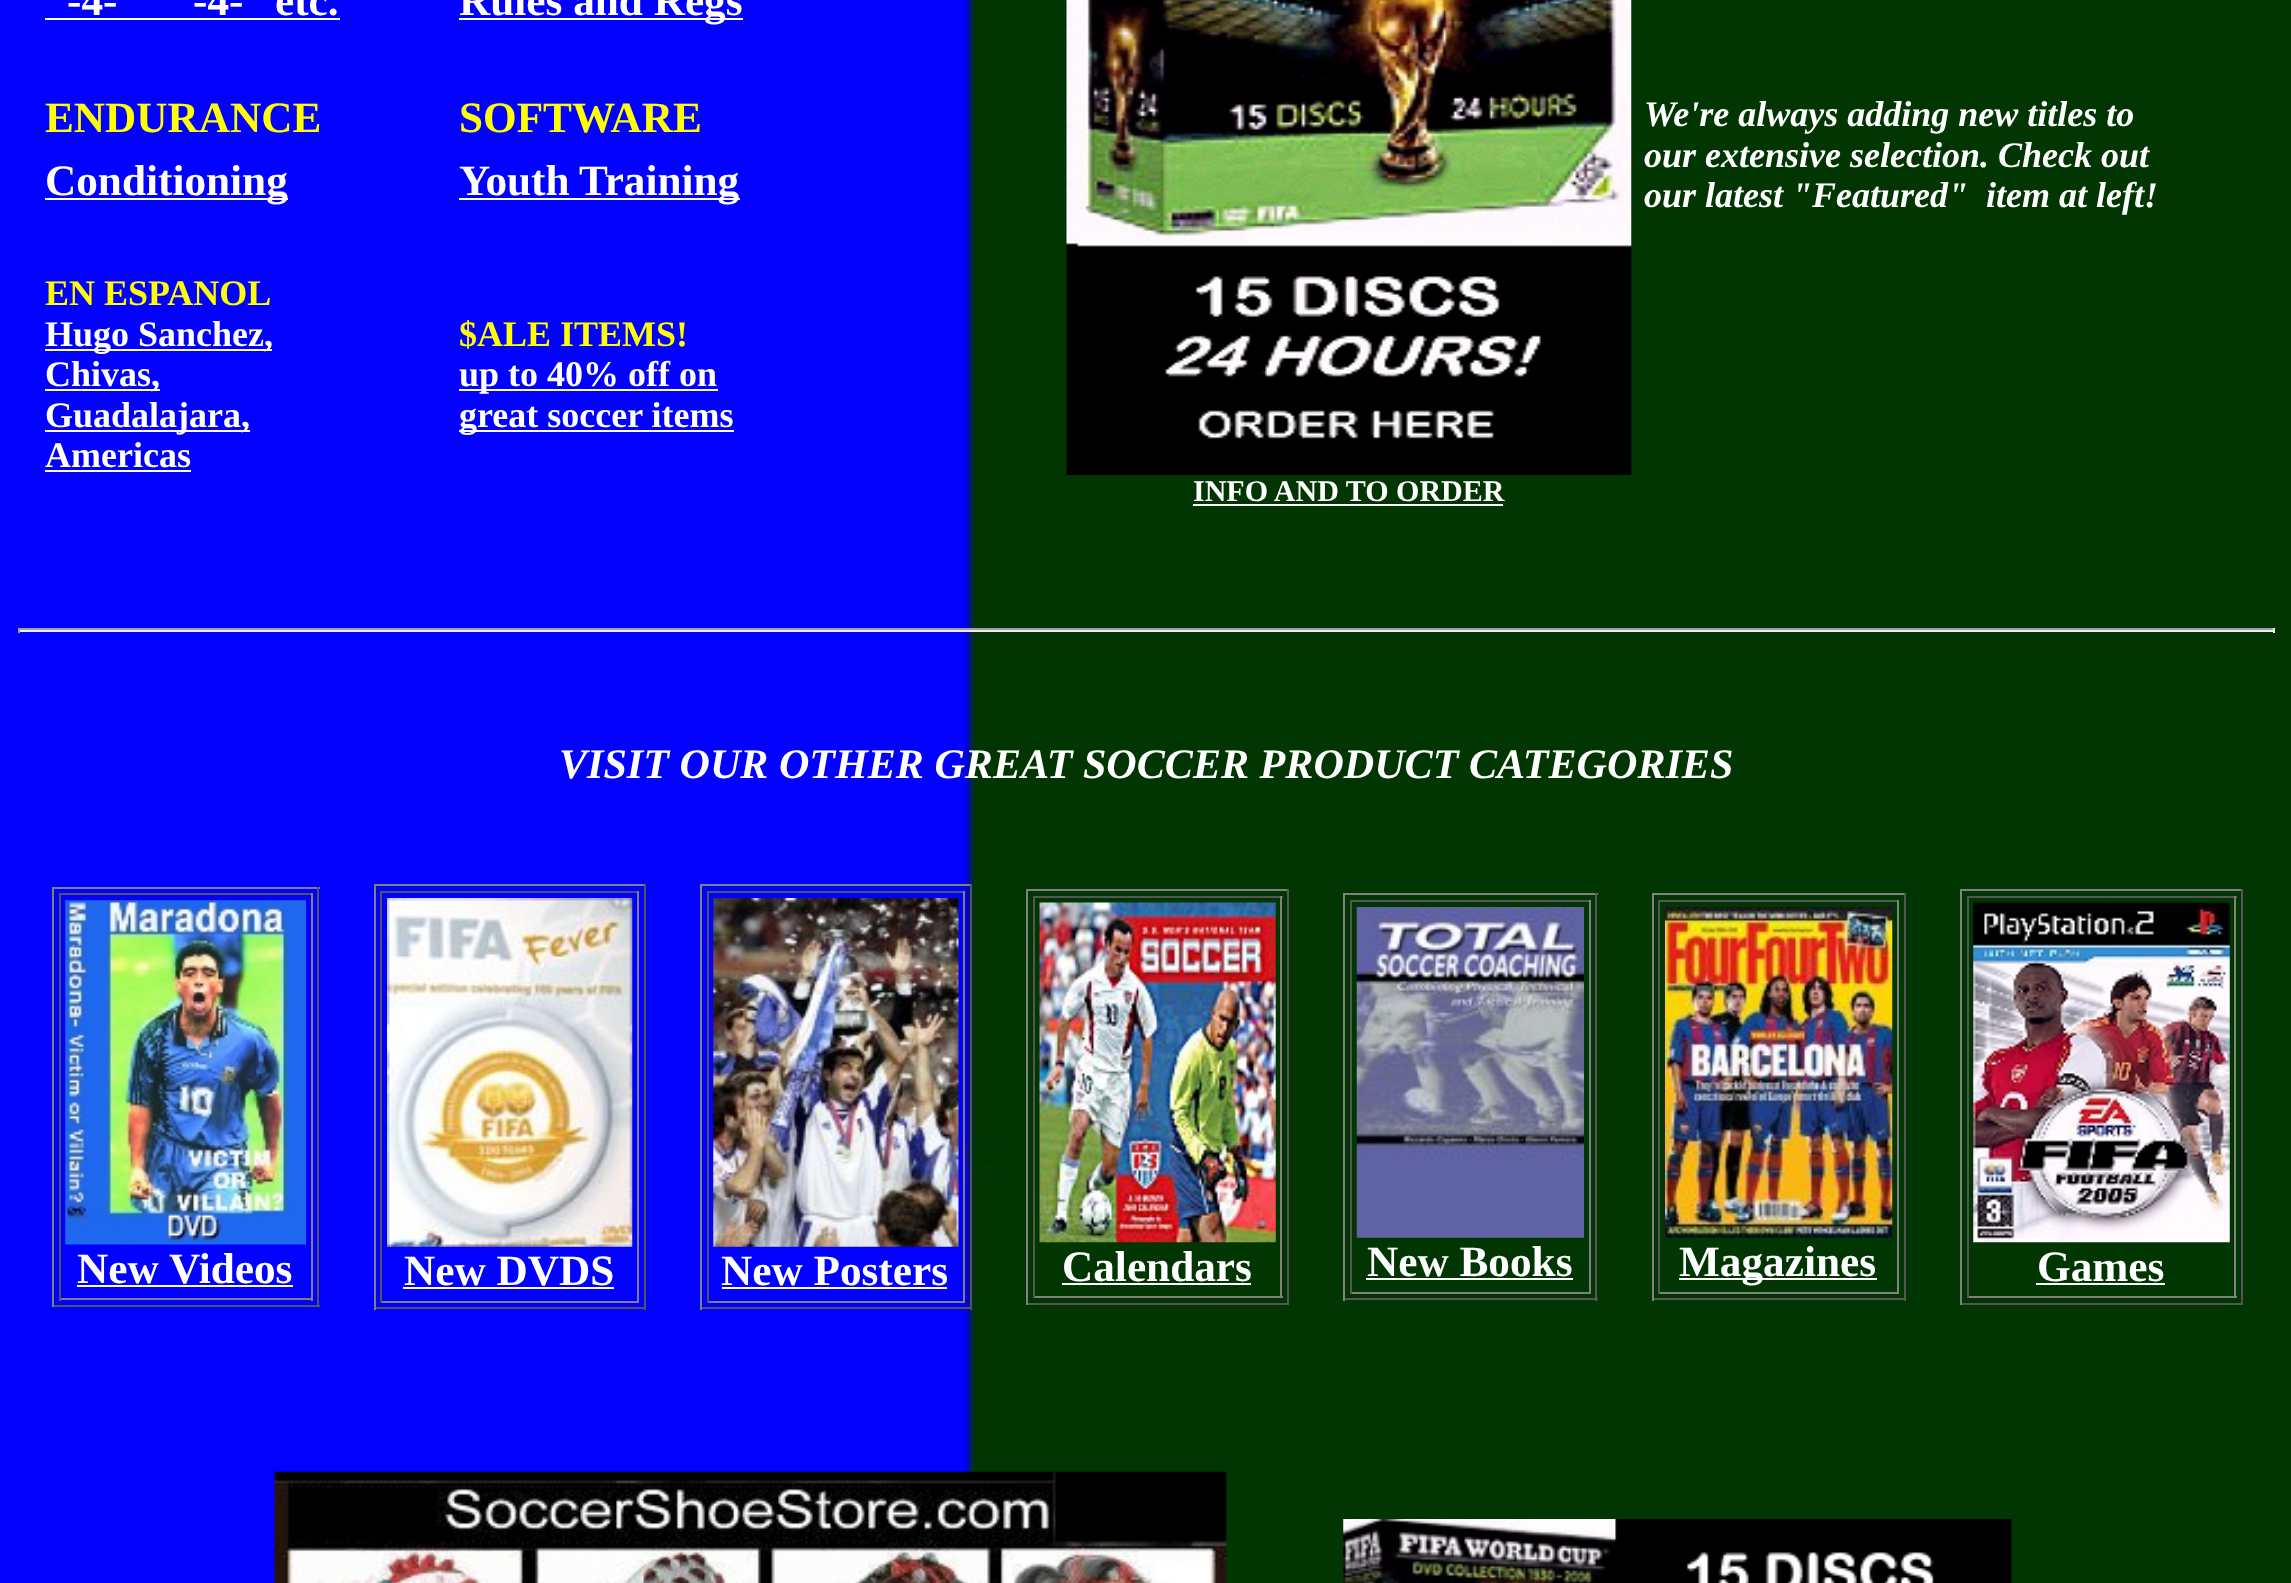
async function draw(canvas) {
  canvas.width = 2291
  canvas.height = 1583
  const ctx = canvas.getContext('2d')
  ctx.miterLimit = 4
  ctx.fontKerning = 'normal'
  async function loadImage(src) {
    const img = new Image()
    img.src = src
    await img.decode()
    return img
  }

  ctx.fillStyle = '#fff'
  ctx.fillRect(0, 0, 2291, 1583)
  ctx.drawImage(await loadImage('image0.png'), 0, 0, 2291, 1583)
  ctx.font = 'bold 43.25px Liberation Serif'
  ctx.fillText('-4-', 67, 15)
  ctx.fillText('-4-', 193, 15)
  ctx.fillText('etc.', 275, 15)
  ctx.fillRect(45, 18, 295, 2)
  ctx.fillRect(459, 18, 284, 2)
  ctx.fillText('Rules and Regs', 459, 15)
  ctx.fillStyle = '#ff0'
  ctx.fillText('ENDURANCE', 45, 132)
  ctx.fillText('SOFTWARE', 459, 132)
  ctx.fillStyle = '#fff'
  ctx.fillRect(45, 198, 243, 2)
  ctx.fillText('Conditioning', 45, 195)
  ctx.fillText('Youth', 459, 195)
  ctx.fillRect(459, 198, 281, 2)
  ctx.fillText('Training', 579, 195)
  ctx.font = 'bold 36px Liberation Serif'
  ctx.fillStyle = '#ff0'
  ctx.fillText('EN ESPANOL', 45, 305)
  ctx.fillStyle = '#fff'
  ctx.fillRect(45, 349, 227, 2)
  ctx.fillText('Hugo Sanchez,', 45, 346)
  ctx.fillRect(45, 389, 115, 2)
  ctx.fillText('Chivas,', 45, 386)
  ctx.fillRect(45, 430, 205, 2)
  ctx.fillText('Guadalajara,', 45, 427)
  ctx.fillText('Americas', 45, 467)
  ctx.fillRect(45, 470, 146, 2)
  ctx.fillStyle = '#ff0'
  ctx.fillText('$ALE ITEMS!', 459, 346)
  ctx.fillStyle = '#fff'
  ctx.fillRect(459, 389, 259, 2)
  ctx.fillText('up to 40% off on', 459, 386)
  ctx.fillRect(459, 430, 275, 2)
  ctx.fillText('great soccer items', 459, 427)
  ctx.font = 'italic bold 36px Liberation Serif'
  ctx.fillText('We\'re always adding new titles to', 1644, 126)
  ctx.fillText('our extensive selection. Check out', 1644, 167)
  ctx.fillText('our latest "Featured"  item at left!', 1644, 207)
  ctx.drawImage(await loadImage('image1.png'), 1066, 0, 566, 475)
  ctx.font = 'bold 30px Liberation Serif'
  ctx.fillText('INFO AND TO ORDER', 1193, 501)
  ctx.fillRect(1193, 504, 310, 2)
  ctx.fillStyle = '#9f9f9f'
  ctx.fillRect(18, 628, 2257, 2)
  ctx.fillStyle = '#eee'
  ctx.fillRect(2273, 628, 2, 5)
  ctx.fillRect(18, 630, 2257, 2)
  ctx.fillStyle = '#9f9f9f'
  ctx.fillRect(18, 628, 2, 5)
  ctx.font = 'italic bold 42.1px Liberation Serif'
  ctx.fillStyle = '#fff'
  ctx.fillText('VISIT OUR OTHER GREAT SOCCER PRODUCT', 559, 778)
  ctx.fillText('CATEGORIES', 1469, 778)
  ctx.fillStyle = '#808080'
  ctx.fillRect(52, 887, 268, 2)
  ctx.fillStyle = '#555'
  ctx.fillRect(317, 887, 2, 420)
  ctx.fillRect(52, 1305, 268, 2)
  ctx.fillStyle = '#808080'
  ctx.fillRect(52, 887, 2, 420)
  ctx.fillStyle = '#555'
  ctx.fillRect(59, 893, 254, 2)
  ctx.fillStyle = '#808080'
  ctx.fillRect(311, 893, 2, 408)
  ctx.fillRect(59, 1298, 254, 2)
  ctx.fillStyle = '#555'
  ctx.fillRect(59, 893, 2, 408)
  ctx.drawImage(await loadImage('image2.png'), 65, 900, 241, 345)
  ctx.font = 'bold 43.25px Liberation Serif'
  ctx.fillStyle = '#fff'
  ctx.fillText('New', 77, 1283)
  ctx.fillRect(77, 1285, 216, 2)
  ctx.fillText('Videos', 169, 1283)
  ctx.fillStyle = '#808080'
  ctx.fillRect(374, 884, 272, 2)
  ctx.fillStyle = '#555'
  ctx.fillRect(644, 884, 2, 426)
  ctx.fillRect(374, 1307, 272, 2)
  ctx.fillStyle = '#808080'
  ctx.fillRect(374, 884, 2, 426)
  ctx.fillStyle = '#555'
  ctx.fillRect(380, 891, 259, 2)
  ctx.fillStyle = '#808080'
  ctx.fillRect(637, 891, 2, 412)
  ctx.fillRect(380, 1301, 259, 2)
  ctx.fillStyle = '#555'
  ctx.fillRect(380, 891, 2, 412)
  ctx.drawImage(await loadImage('image3.png'), 387, 898, 246, 349)
  ctx.fillStyle = '#fff'
  ctx.fillText('New DVDS', 404, 1285)
  ctx.fillRect(403, 1287, 211, 2)
  ctx.fillStyle = '#808080'
  ctx.fillRect(700, 884, 272, 2)
  ctx.fillStyle = '#555'
  ctx.fillRect(970, 884, 2, 426)
  ctx.fillRect(700, 1307, 272, 2)
  ctx.fillStyle = '#808080'
  ctx.fillRect(700, 884, 2, 426)
  ctx.fillStyle = '#555'
  ctx.fillRect(707, 891, 258, 2)
  ctx.fillStyle = '#808080'
  ctx.fillRect(963, 891, 2, 412)
  ctx.fillRect(707, 1301, 258, 2)
  ctx.fillStyle = '#555'
  ctx.fillRect(707, 891, 2, 412)
  ctx.drawImage(await loadImage('image4.png'), 713, 898, 246, 349)
  ctx.fillStyle = '#fff'
  ctx.fillText('New Posters', 721, 1285)
  ctx.fillRect(722, 1287, 225, 2)
  ctx.fillStyle = '#808080'
  ctx.fillRect(1026, 889, 263, 2)
  ctx.fillStyle = '#555'
  ctx.fillRect(1287, 889, 2, 416)
  ctx.fillRect(1026, 1303, 263, 2)
  ctx.fillStyle = '#808080'
  ctx.fillRect(1026, 889, 2, 416)
  ctx.fillStyle = '#555'
  ctx.fillRect(1033, 896, 250, 2)
  ctx.fillStyle = '#808080'
  ctx.fillRect(1280, 896, 2, 402)
  ctx.fillRect(1033, 1296, 250, 2)
  ctx.fillStyle = '#555'
  ctx.fillRect(1033, 896, 2, 402)
  ctx.drawImage(await loadImage('image5.png'), 1039, 902, 237, 341)
  ctx.fillStyle = '#fff'
  ctx.fillText('Calendars', 1062, 1281)
  ctx.fillRect(1062, 1283, 189, 2)
  ctx.fillStyle = '#808080'
  ctx.fillRect(1343, 893, 255, 2)
  ctx.fillStyle = '#555'
  ctx.fillRect(1595, 893, 2, 408)
  ctx.fillRect(1343, 1298, 255, 2)
  ctx.fillStyle = '#808080'
  ctx.fillRect(1343, 893, 2, 408)
  ctx.fillStyle = '#555'
  ctx.fillRect(1350, 900, 241, 2)
  ctx.fillStyle = '#808080'
  ctx.fillRect(1589, 900, 2, 394)
  ctx.fillRect(1350, 1292, 241, 2)
  ctx.fillStyle = '#555'
  ctx.fillRect(1350, 900, 2, 394)
  ctx.drawImage(await loadImage('image6.png'), 1356, 907, 228, 331)
  ctx.fillStyle = '#fff'
  ctx.fillText('New Books', 1367, 1276)
  ctx.fillRect(1366, 1278, 207, 2)
  ctx.fillStyle = '#808080'
  ctx.fillRect(1652, 893, 254, 2)
  ctx.fillStyle = '#555'
  ctx.fillRect(1904, 893, 2, 408)
  ctx.fillRect(1652, 1298, 254, 2)
  ctx.fillStyle = '#808080'
  ctx.fillRect(1652, 893, 2, 408)
  ctx.fillStyle = '#555'
  ctx.fillRect(1658, 900, 241, 2)
  ctx.fillStyle = '#808080'
  ctx.fillRect(1897, 900, 2, 394)
  ctx.fillRect(1658, 1292, 241, 2)
  ctx.fillStyle = '#555'
  ctx.fillRect(1658, 900, 2, 394)
  ctx.drawImage(await loadImage('image7.png'), 1665, 907, 228, 331)
  ctx.fillStyle = '#fff'
  ctx.fillRect(1679, 1278, 198, 2)
  ctx.fillText('Magazines', 1679, 1276)
  ctx.fillStyle = '#808080'
  ctx.fillRect(1960, 889, 283, 2)
  ctx.fillStyle = '#555'
  ctx.fillRect(2241, 889, 2, 416)
  ctx.fillRect(1960, 1303, 283, 2)
  ctx.fillStyle = '#808080'
  ctx.fillRect(1960, 889, 2, 416)
  ctx.fillStyle = '#555'
  ctx.fillRect(1967, 896, 270, 2)
  ctx.fillStyle = '#808080'
  ctx.fillRect(2234, 896, 2, 402)
  ctx.fillRect(1967, 1296, 270, 2)
  ctx.fillStyle = '#555'
  ctx.fillRect(1967, 896, 2, 402)
  ctx.drawImage(await loadImage('image8.png'), 1973, 902, 257, 341)
  ctx.fillStyle = '#fff'
  ctx.fillText('Games', 2037, 1281)
  ctx.fillRect(2036, 1283, 129, 2)
  ctx.drawImage(await loadImage('image9.png'), 274, 1471, 953, 112)
  ctx.drawImage(await loadImage('image10.png'), 1343, 1519, 669, 64)
}

draw(document.querySelector('canvas'))
